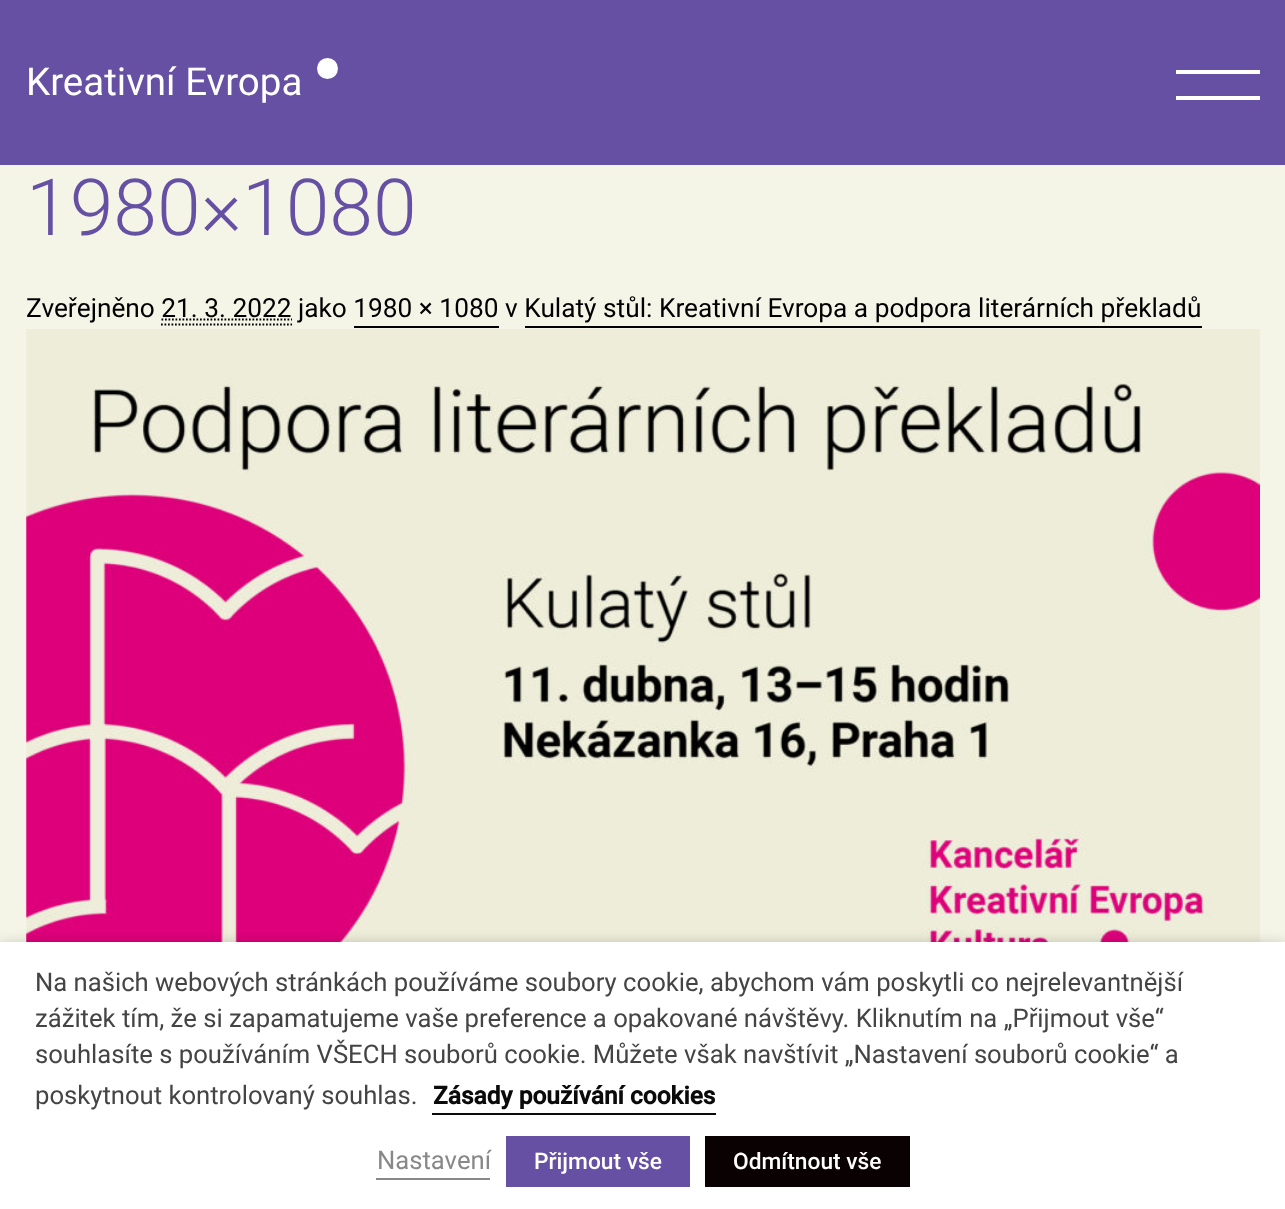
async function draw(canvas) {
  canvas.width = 1285
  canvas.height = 1209
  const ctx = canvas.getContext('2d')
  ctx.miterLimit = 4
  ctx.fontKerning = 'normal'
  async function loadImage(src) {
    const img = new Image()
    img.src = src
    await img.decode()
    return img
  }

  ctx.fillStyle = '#f5f5e7'
  ctx.fillRect(0, 0, 1285, 1209)
  ctx.fillStyle = '#6550a3'
  ctx.fillRect(0, 0, 1285, 165)
  ctx.font = '38.5px Roboto'
  ctx.fillStyle = '#fff'
  ctx.fillText('Kreativní Evropa', 26, 95)
  ctx.beginPath()
  ctx.arc(327.5, 68.5, 10.5, 0, 2 * Math.PI)
  ctx.fill()
  ctx.fillRect(1176, 70, 84, 4)
  ctx.fillRect(1176, 96, 84, 4)
  ctx.font = '300 78.75px Roboto'
  ctx.fillStyle = '#6550a3'
  ctx.fillText('1980×1080', 26, 235)
  ctx.font = '26.25px Roboto'
  ctx.fillStyle = '#000'
  ctx.fillText('Zveřejněno 21. 3. 2022 jako 1980 × 1080', 26, 317)
  ctx.fillText('v Kulatý stůl: Kreativní Evropa a podpora literárních překladů', 505, 317)
  ctx.beginPath()
  ctx.moveTo(161.5, 319.5)
  ctx.lineTo(292, 319.5)
  ctx.strokeStyle = '#000'
  ctx.lineWidth = 1.8
  ctx.setLineDash([1.75, 1.75])
  ctx.stroke()
  ctx.beginPath()
  ctx.moveTo(161, 324.5)
  ctx.lineTo(292, 324.5)
  ctx.stroke()
  ctx.fillRect(354, 326, 145, 2)
  ctx.fillRect(525, 326, 677, 2)
  ctx.drawImage(await loadImage('image0.png'), 26, 329, 1234, 613)
  ctx.fillStyle = '#00000080'
  ctx.filter = 'blur(9px)'
  ctx.beginPath()
  ctx.rect(0, 950, 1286, 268)
  ctx.fill()
  ctx.filter = 'none'
  ctx.fillStyle = '#fff'
  ctx.fillRect(0, 942, 1285, 267)
  ctx.font = '25.65px Roboto'
  ctx.fillStyle = '#444'
  ctx.fillText('Na našich webových stránkách používáme soubory cookie, abychom vám poskytli co nejrelevantnější', 35, 991)
  ctx.fillText('zážitek tím, že si zapamatujeme vaše preference a opakované návštěvy. Kliknutím na „Přijmout vše“', 35, 1027)
  ctx.fillText('souhlasíte s používáním VŠECH souborů cookie. Můžete však navštívit „Nastavení souborů cookie“ a', 35, 1063)
  ctx.fillText('poskytnout kontrolovaný souhlas.', 35, 1104)
  ctx.font = 'bold 24.5px Roboto'
  ctx.fillStyle = '#0a0a0a'
  ctx.fillText('Zásady používání cookies', 433, 1104)
  ctx.fillRect(432, 1113, 284, 2)
  ctx.font = '25.65px Roboto'
  ctx.fillStyle = '#898888'
  ctx.fillText('Nastavení', 377, 1169)
  ctx.fillRect(376, 1178, 114, 2)
  ctx.fillStyle = '#6550a3'
  ctx.fillRect(506, 1136, 184, 51)
  ctx.font = '500 22.75px Roboto'
  ctx.fillStyle = '#fff'
  ctx.fillText('Přijmout vše', 534, 1169)
  ctx.fillStyle = '#0a0202'
  ctx.fillRect(705, 1136, 205, 51)
  ctx.fillStyle = '#fff'
  ctx.fillText('Odmítnout vše', 733, 1169)
}

draw(document.querySelector('canvas'))
